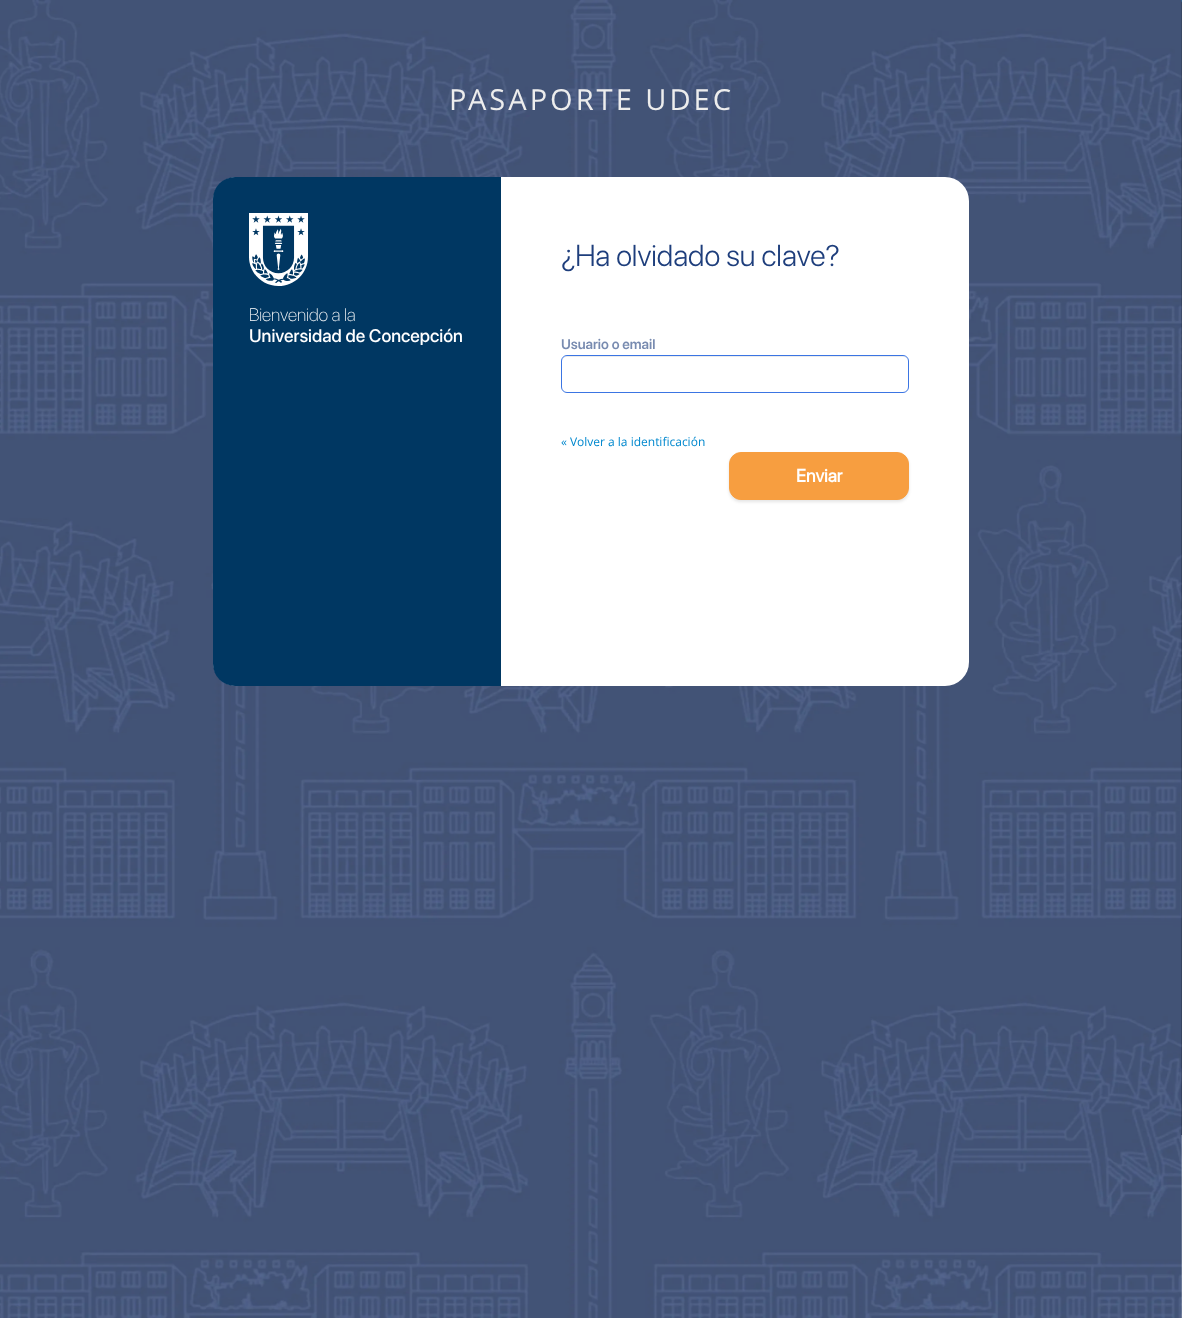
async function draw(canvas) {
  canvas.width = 1182
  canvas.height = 1318
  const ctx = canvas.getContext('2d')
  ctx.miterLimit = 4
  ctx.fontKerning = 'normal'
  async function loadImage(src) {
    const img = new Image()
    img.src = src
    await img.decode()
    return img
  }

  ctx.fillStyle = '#fff'
  ctx.fillRect(0, 0, 1182, 1318)
  ctx.drawImage(await loadImage('image0.png'), 1181, 0, 1, 1135)
  ctx.drawImage(await loadImage('image1.png'), 0, 0, 1182, 1318)
  ctx.letterSpacing = '3px'
  ctx.font = '29px Open Sans'
  ctx.fillStyle = '#ededed'
  ctx.fillText('PASAPORTE UDEC', 449, 110)
  ctx.fillStyle = '#fff'
  ctx.beginPath()
  ctx.roundRect(213, 177, 756, 509, 24)
  ctx.fill()
  ctx.fillStyle = '#003762'
  ctx.beginPath()
  ctx.roundRect(213, 177, 288, 509, [22, 0, 0, 22])
  ctx.fill()
  ctx.drawImage(await loadImage('image2.png'), 249, 213, 59, 73)
  ctx.letterSpacing = '0px'
  ctx.font = '100 18px SF Pro Display'
  ctx.fillStyle = '#fff'
  ctx.fillText('Bienvenido a la', 249, 321)
  ctx.font = '500 18px SF Pro Display'
  ctx.fillText('Universidad de Concepción', 249, 342)
  ctx.font = '300 30px SF Pro Display'
  ctx.fillStyle = '#1e3e7c'
  ctx.fillText('¿Ha olvidado su clave?', 561, 266)
  ctx.font = '600 14px SF Pro Display'
  ctx.fillStyle = '#788bb0'
  ctx.fillText('Usuario o email', 561, 349)
  ctx.fillStyle = '#ececec'
  ctx.beginPath()
  ctx.moveTo(567, 357)
  ctx.lineTo(903, 357)
  ctx.bezierCurveTo(906, 357, 908, 359, 908, 362)
  ctx.bezierCurveTo(908, 359, 906, 356, 903, 356)
  ctx.lineTo(567, 356)
  ctx.bezierCurveTo(564, 356, 562, 359, 562, 362)
  ctx.bezierCurveTo(562, 359, 564, 357, 567, 357)
  ctx.closePath()
  ctx.fill()
  ctx.beginPath()
  ctx.roundRect(561.5, 355.5, 347, 37, 5.5)
  ctx.strokeStyle = '#3b75e3'
  ctx.stroke()
  ctx.font = '12px Open Sans'
  ctx.fillStyle = '#0088ce'
  ctx.fillText('« Volver a la identificación', 561, 446)
  ctx.fillStyle = '#0303031a'
  ctx.filter = 'blur(1.5px)'
  ctx.beginPath()
  ctx.roundRect(729, 454, 180, 48, 12)
  ctx.fill()
  ctx.filter = 'none'
  ctx.fillStyle = '#f79e40'
  ctx.beginPath()
  ctx.roundRect(729.5, 452.5, 179, 47, 11.5)
  ctx.fill()
  ctx.strokeStyle = '#f79e40'
  ctx.stroke()
  ctx.font = 'bold 18px SF Pro Display'
  ctx.fillStyle = '#fff'
  ctx.fillText('Enviar', 796, 482)
}

draw(document.querySelector('canvas'))
